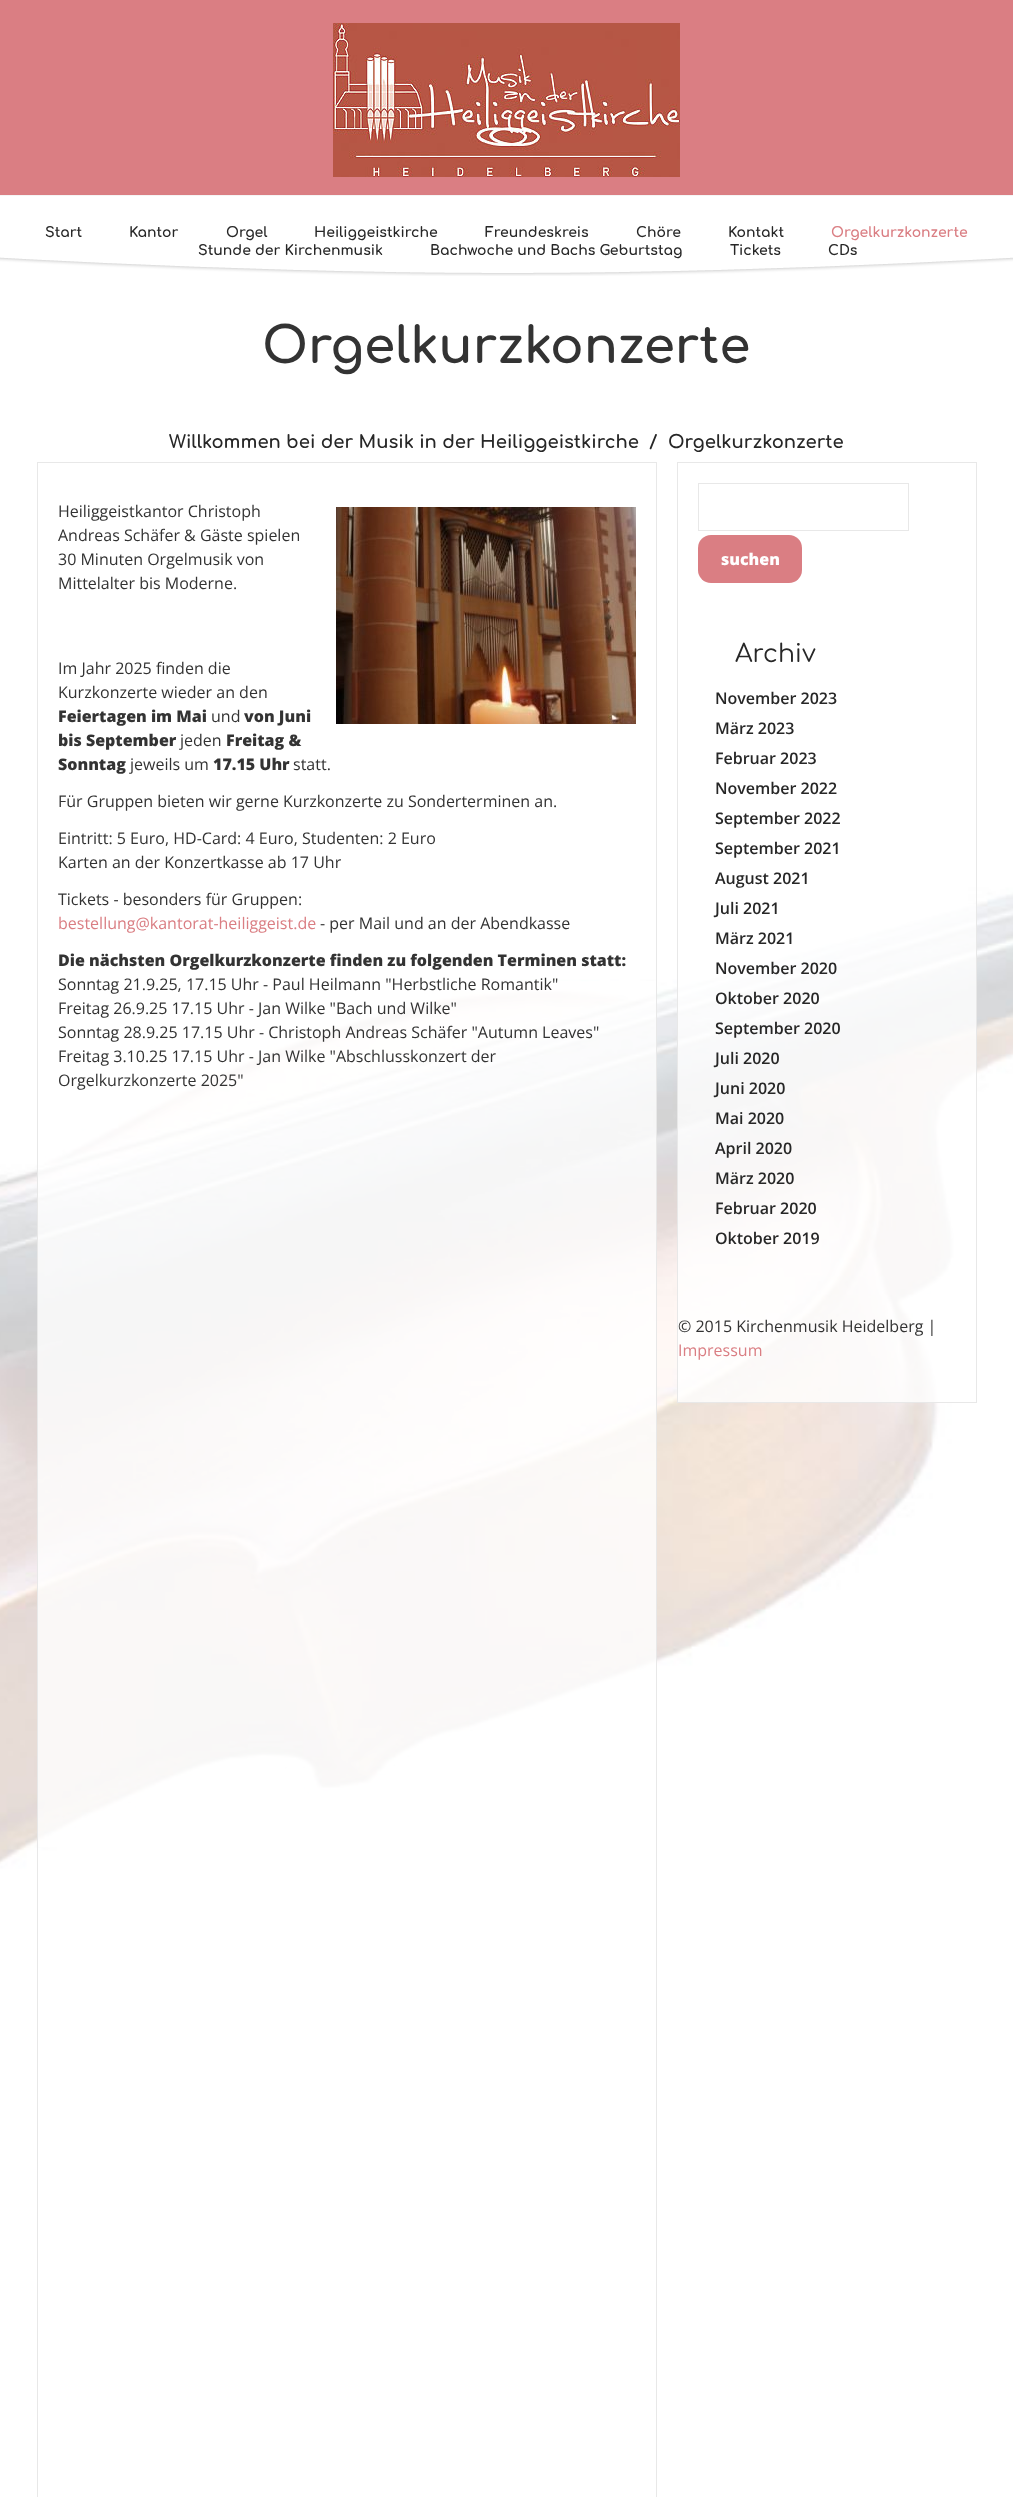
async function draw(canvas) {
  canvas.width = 1013
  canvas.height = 2497
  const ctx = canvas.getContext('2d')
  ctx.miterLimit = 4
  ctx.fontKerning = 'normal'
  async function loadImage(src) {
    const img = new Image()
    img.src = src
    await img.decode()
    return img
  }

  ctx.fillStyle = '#fff'
  ctx.fillRect(0, 0, 1013, 2497)
  ctx.drawImage(await loadImage('image0.png'), 0, 195, 1013, 2302)
  ctx.fillStyle = '#da7e83'
  ctx.fillRect(0, 0, 37, 195)
  ctx.fillRect(37, 0, 976, 195)
  ctx.drawImage(await loadImage('image1.png'), 333, 23, 347, 154)
  ctx.drawImage(await loadImage('image2.png'), 0, 195, 1013, 81)
  ctx.font = 'bold 14px Comfortaa'
  ctx.fillStyle = '#272727'
  ctx.fillText('Start', 45, 237)
  ctx.fillText('Kantor', 129, 237)
  ctx.fillText('Orgel', 226, 237)
  ctx.fillText('Heiliggeistkirche', 314, 237)
  ctx.fillText('Freundeskreis', 485, 237)
  ctx.fillText('Chöre', 636, 237)
  ctx.fillText('Kontakt', 728, 237)
  ctx.fillStyle = '#da7e83'
  ctx.fillText('Orgelkurzkonzerte', 831, 237)
  ctx.fillStyle = '#272727'
  ctx.fillText('Stunde der Kirchenmusik', 198, 255)
  ctx.fillText('Bachwoche und Bachs Geburtstag', 430, 255)
  ctx.fillText('Tickets', 730, 255)
  ctx.fillText('CDs', 828, 255)
  ctx.font = 'bold 50px Comfortaa'
  ctx.fillStyle = '#333'
  ctx.fillText('Orgelkurzkonzerte', 262, 363)
  ctx.font = 'bold 18px Comfortaa'
  ctx.fillStyle = '#272727'
  ctx.fillText('Willkommen bei der Musik in der Heiliggeistkirche', 169, 448)
  ctx.fillText('/', 649, 448)
  ctx.fillText('Orgelkurzkonzerte', 668, 448)
  ctx.fillStyle = '#ffffffcc'
  ctx.fillRect(38, 981, 618, 866)
  ctx.strokeStyle = '#e8e8e8'
  ctx.strokeRect(37.5, 462.5, 619, 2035)
  ctx.font = '16px Open Sans'
  ctx.fillStyle = '#333'
  ctx.fillText('Heiliggeistkantor Christoph', 58, 517)
  ctx.fillText('Andreas Schäfer & Gäste spielen', 58, 541)
  ctx.fillText('30 Minuten Orgelmusik von', 58, 565)
  ctx.fillText('Mittelalter bis Moderne.', 58, 589)
  ctx.drawImage(await loadImage('image3.png'), 336, 507, 300, 217)
  ctx.fillText('Im Jahr 2025 finden die', 58, 674)
  ctx.fillText('Kurzkonzerte wieder an den', 58, 698)
  ctx.font = '800 16px Open Sans'
  ctx.fillText('Feiertagen im Mai', 58, 722)
  ctx.font = '16px Open Sans'
  ctx.fillText('und', 211, 722)
  ctx.font = '800 16px Open Sans'
  ctx.fillText('von Juni', 244, 722)
  ctx.fillText('bis September', 58, 746)
  ctx.font = '16px Open Sans'
  ctx.fillText('jeden', 180, 746)
  ctx.font = '800 16px Open Sans'
  ctx.fillText('Freitag &', 226, 746)
  ctx.fillText('Sonntag', 58, 770)
  ctx.font = '16px Open Sans'
  ctx.fillText('jeweils um', 130, 770)
  ctx.font = '800 16px Open Sans'
  ctx.fillText('17.15 Uhr', 213, 770)
  ctx.font = '16px Open Sans'
  ctx.fillText('statt.', 293, 770)
  ctx.fillText('Für Gruppen bieten wir gerne Kurzkonzerte zu Sonderterminen an.', 58, 807)
  ctx.fillText('Eintritt: 5 Euro, HD-Card: 4 Euro, Studenten: 2 Euro', 58, 844)
  ctx.fillText('Karten an der Konzertkasse ab 17 Uhr', 58, 868)
  ctx.fillText('Tickets - besonders für Gruppen:', 58, 905)
  ctx.fillStyle = '#da7e83'
  ctx.fillText('bestellung@kantorat-heiliggeist.de', 58, 929)
  ctx.fillStyle = '#333'
  ctx.fillText('- per Mail und an der Abendkasse', 320, 929)
  ctx.font = '800 16px Open Sans'
  ctx.fillText('Die nächsten Orgelkurzkonzerte finden zu folgenden Terminen statt:', 58, 966)
  ctx.font = '16px Open Sans'
  ctx.fillText('Sonntag 21.9.25, 17.15 Uhr - Paul Heilmann "Herbstliche Romantik"', 58, 990)
  ctx.fillText('Freitag 26.9.25 17.15 Uhr - Jan Wilke "Bach und Wilke"', 58, 1014)
  ctx.fillText('Sonntag 28.9.25 17.15 Uhr - Christoph Andreas Schäfer "Autumn Leaves"', 58, 1038)
  ctx.fillText('Freitag 3.10.25 17.15 Uhr - Jan Wilke "Abschlusskonzert der', 58, 1062)
  ctx.fillText('Orgelkurzkonzerte 2025"', 58, 1086)
  ctx.fillStyle = '#ffffffcc'
  ctx.fillRect(678, 904, 298, 498)
  ctx.strokeRect(677.5, 462.5, 299, 940)
  ctx.strokeRect(698.5, 483.5, 210, 47)
  ctx.fillStyle = '#da7e83'
  ctx.beginPath()
  ctx.roundRect(698, 535, 104, 48, 13)
  ctx.fill()
  ctx.font = '800 16px Open Sans'
  ctx.fillStyle = '#fff'
  ctx.fillText('suchen', 721, 565)
  ctx.font = '25px Comfortaa'
  ctx.fillStyle = '#272727'
  ctx.fillText('Archiv', 735, 662)
  ctx.font = '600 16px Open Sans'
  ctx.fillText('November 2023', 715, 704)
  ctx.fillText('März 2023', 715, 734)
  ctx.fillText('Februar 2023', 715, 764)
  ctx.fillText('November 2022', 715, 794)
  ctx.fillText('September 2022', 715, 824)
  ctx.fillText('September 2021', 715, 854)
  ctx.fillText('August 2021', 715, 884)
  ctx.fillText('Juli 2021', 715, 914)
  ctx.fillText('März 2021', 715, 944)
  ctx.fillText('November 2020', 715, 974)
  ctx.fillText('Oktober 2020', 715, 1004)
  ctx.fillText('September 2020', 715, 1034)
  ctx.fillText('Juli 2020', 715, 1064)
  ctx.fillText('Juni 2020', 715, 1094)
  ctx.fillText('Mai 2020', 715, 1124)
  ctx.fillText('April 2020', 715, 1154)
  ctx.fillText('März 2020', 715, 1184)
  ctx.fillText('Februar 2020', 715, 1214)
  ctx.fillText('Oktober 2019', 715, 1244)
  ctx.font = '16px Open Sans'
  ctx.fillStyle = '#333'
  ctx.fillText('© 2015 Kirchenmusik Heidelberg |', 678, 1332)
  ctx.fillStyle = '#da7e83'
  ctx.fillText('Impressum', 678, 1356)
}

draw(document.querySelector('canvas'))
